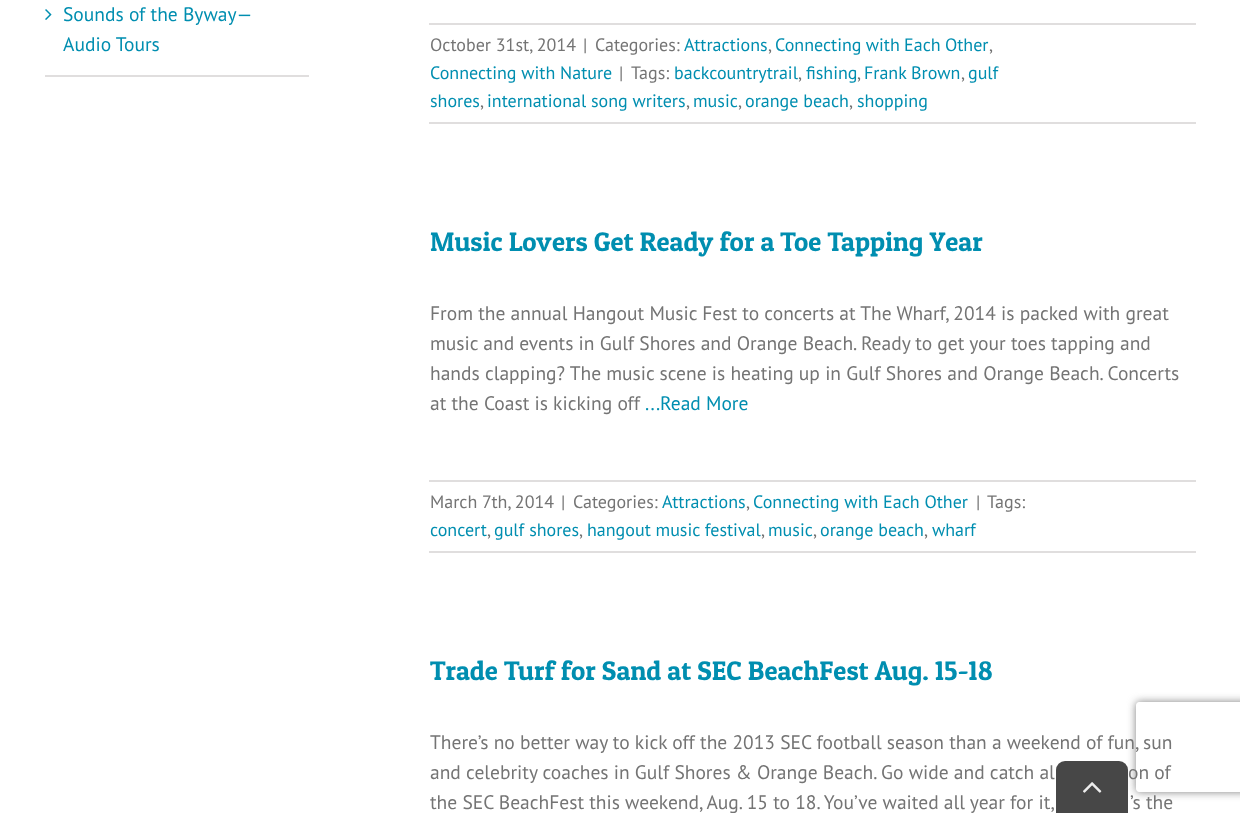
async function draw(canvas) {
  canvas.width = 1240
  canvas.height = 813
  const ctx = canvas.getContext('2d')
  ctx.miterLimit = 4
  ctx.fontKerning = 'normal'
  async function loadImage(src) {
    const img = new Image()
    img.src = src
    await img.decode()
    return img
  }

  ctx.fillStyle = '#fff'
  ctx.fillRect(0, 0, 1240, 813)
  ctx.fillStyle = '#e0dede'
  ctx.fillRect(45, 75, 264, 2)
  ctx.drawImage(await loadImage('image0.png'), 45, 9, 7, 11)
  ctx.font = '19.5px PT Sans'
  ctx.fillStyle = '#008eb0'
  ctx.fillText('Sounds of the Byway—', 63, 21)
  ctx.fillText('Audio Tours', 63, 51)
  ctx.fillStyle = '#e0dede'
  ctx.fillRect(429, 23, 767, 2)
  ctx.fillRect(429, 122, 767, 2)
  ctx.font = '18px PT Sans'
  ctx.fillStyle = '#747474'
  ctx.fillText('October 31st, 2014', 430, 51)
  ctx.fillText('|', 583, 51)
  ctx.fillText('Categories:', 595, 51)
  ctx.fillStyle = '#008eb0'
  ctx.fillText('Attractions', 684, 51)
  ctx.fillStyle = '#747474'
  ctx.fillText(',', 768, 51)
  ctx.wordSpacing = '-0.5px'
  ctx.fillStyle = '#008eb0'
  ctx.fillText('Connecting with Each Other', 775, 51)
  ctx.wordSpacing = '0px'
  ctx.fillStyle = '#747474'
  ctx.fillText(',', 989, 51)
  ctx.fillStyle = '#008eb0'
  ctx.fillText('Connecting with Nature', 430, 79)
  ctx.fillStyle = '#747474'
  ctx.fillText('|', 619, 79)
  ctx.fillText('Tags:', 631, 79)
  ctx.fillStyle = '#008eb0'
  ctx.fillText('backcountrytrail', 674, 79)
  ctx.fillStyle = '#747474'
  ctx.fillText(',', 798, 79)
  ctx.fillStyle = '#008eb0'
  ctx.fillText('fishing', 806, 79)
  ctx.fillStyle = '#747474'
  ctx.fillText(',', 857, 79)
  ctx.fillStyle = '#008eb0'
  ctx.fillText('Frank Brown', 864, 79)
  ctx.fillStyle = '#747474'
  ctx.fillText(',', 961, 79)
  ctx.fillStyle = '#008eb0'
  ctx.fillText('gulf', 968, 79)
  ctx.fillText('shores', 430, 107)
  ctx.fillStyle = '#747474'
  ctx.fillText(',', 480, 107)
  ctx.fillStyle = '#008eb0'
  ctx.fillText('international song writers', 487, 107)
  ctx.fillStyle = '#747474'
  ctx.fillText(',', 686, 107)
  ctx.fillStyle = '#008eb0'
  ctx.fillText('music', 693, 107)
  ctx.fillStyle = '#747474'
  ctx.fillText(',', 738, 107)
  ctx.fillStyle = '#008eb0'
  ctx.fillText('orange beach', 745, 107)
  ctx.fillStyle = '#747474'
  ctx.fillText(',', 849, 107)
  ctx.fillStyle = '#008eb0'
  ctx.fillText('shopping', 857, 107)
  ctx.font = '27px Patua One'
  ctx.fillText('Music Lovers Get Ready for a Toe Tapping Year', 430, 251)
  ctx.font = '19.5px PT Sans'
  ctx.fillStyle = '#747474'
  ctx.fillText('From the annual Hangout Music Fest to concerts at The Wharf, 2014 is packed with great', 430, 320)
  ctx.fillText('music and events in Gulf Shores and Orange Beach. Ready to get your toes tapping and', 430, 350)
  ctx.fillText('hands clapping? The music scene is heating up in Gulf Shores and Orange Beach. Concerts', 430, 380)
  ctx.fillText('at the Coast is kicking off', 430, 410)
  ctx.fillStyle = '#008eb0'
  ctx.fillText('...Read More', 645, 410)
  ctx.fillStyle = '#e0dede'
  ctx.fillRect(429, 480, 767, 2)
  ctx.fillRect(429, 551, 767, 2)
  ctx.font = '18px PT Sans'
  ctx.fillStyle = '#747474'
  ctx.fillText('March 7th, 2014', 430, 508)
  ctx.fillText('|', 561, 508)
  ctx.fillText('Categories:', 573, 508)
  ctx.fillStyle = '#008eb0'
  ctx.fillText('Attractions', 662, 508)
  ctx.fillStyle = '#747474'
  ctx.fillText(',', 746, 508)
  ctx.fillStyle = '#008eb0'
  ctx.fillText('Connecting with Each Other', 753, 508)
  ctx.fillStyle = '#747474'
  ctx.fillText('|', 976, 508)
  ctx.fillText('Tags:', 987, 508)
  ctx.fillStyle = '#008eb0'
  ctx.fillText('concert', 430, 536)
  ctx.fillStyle = '#747474'
  ctx.fillText(',', 487, 536)
  ctx.fillStyle = '#008eb0'
  ctx.fillText('gulf shores', 494, 536)
  ctx.fillStyle = '#747474'
  ctx.fillText(',', 579, 536)
  ctx.fillStyle = '#008eb0'
  ctx.fillText('hangout music festival', 587, 536)
  ctx.fillStyle = '#747474'
  ctx.fillText(',', 761, 536)
  ctx.fillStyle = '#008eb0'
  ctx.fillText('music', 768, 536)
  ctx.fillStyle = '#747474'
  ctx.fillText(',', 813, 536)
  ctx.fillStyle = '#008eb0'
  ctx.fillText('orange beach', 820, 536)
  ctx.fillStyle = '#747474'
  ctx.fillText(',', 924, 536)
  ctx.fillStyle = '#008eb0'
  ctx.fillText('wharf', 932, 536)
  ctx.font = '27px Patua One'
  ctx.fillText('Trade Turf for Sand at SEC BeachFest Aug. 15-18', 430, 680)
  ctx.font = '19.5px PT Sans'
  ctx.fillStyle = '#747474'
  ctx.fillText('There’s no better way to kick off the 2013 SEC football season than a weekend of fun, sun', 430, 749)
  ctx.fillText('and celebrity coaches in Gulf Shores & Orange Beach. Go wide and catch al', 430, 779)
  ctx.fillText('on of', 1128, 779)
  ctx.fillText('the SEC BeachFest this weekend, Aug. 15 to 18. You’ve waited all year for it,', 430, 809)
  ctx.fillText('’s the', 1130, 809)
  ctx.save()
  ctx.beginPath()
  ctx.moveTo(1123, 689)
  ctx.lineTo(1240, 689)
  ctx.lineTo(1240, 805)
  ctx.lineTo(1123, 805)
  ctx.closePath()
  ctx.moveTo(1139, 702)
  ctx.lineTo(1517, 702)
  ctx.bezierCurveTo(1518.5, 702, 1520, 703.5, 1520, 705)
  ctx.lineTo(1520, 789)
  ctx.bezierCurveTo(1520, 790.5, 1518.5, 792, 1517, 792)
  ctx.lineTo(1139, 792)
  ctx.bezierCurveTo(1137.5, 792, 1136, 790.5, 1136, 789)
  ctx.lineTo(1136, 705)
  ctx.bezierCurveTo(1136, 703.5, 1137.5, 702, 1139, 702)
  ctx.closePath()
  ctx.clip('evenodd')
  ctx.fillStyle = '#808080'
  ctx.filter = 'blur(4px)'
  ctx.beginPath()
  ctx.roundRect(1136, 702, 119, 90, 3)
  ctx.fill()
  ctx.filter = 'none'
  ctx.restore()
  ctx.fillStyle = '#333333e6'
  ctx.beginPath()
  ctx.roundRect(1056, 761, 72, 52, [9, 9, 0, 0])
  ctx.fill()
  ctx.drawImage(await loadImage('image1.png'), 1083, 782, 19, 11)
}

draw(document.querySelector('canvas'))
